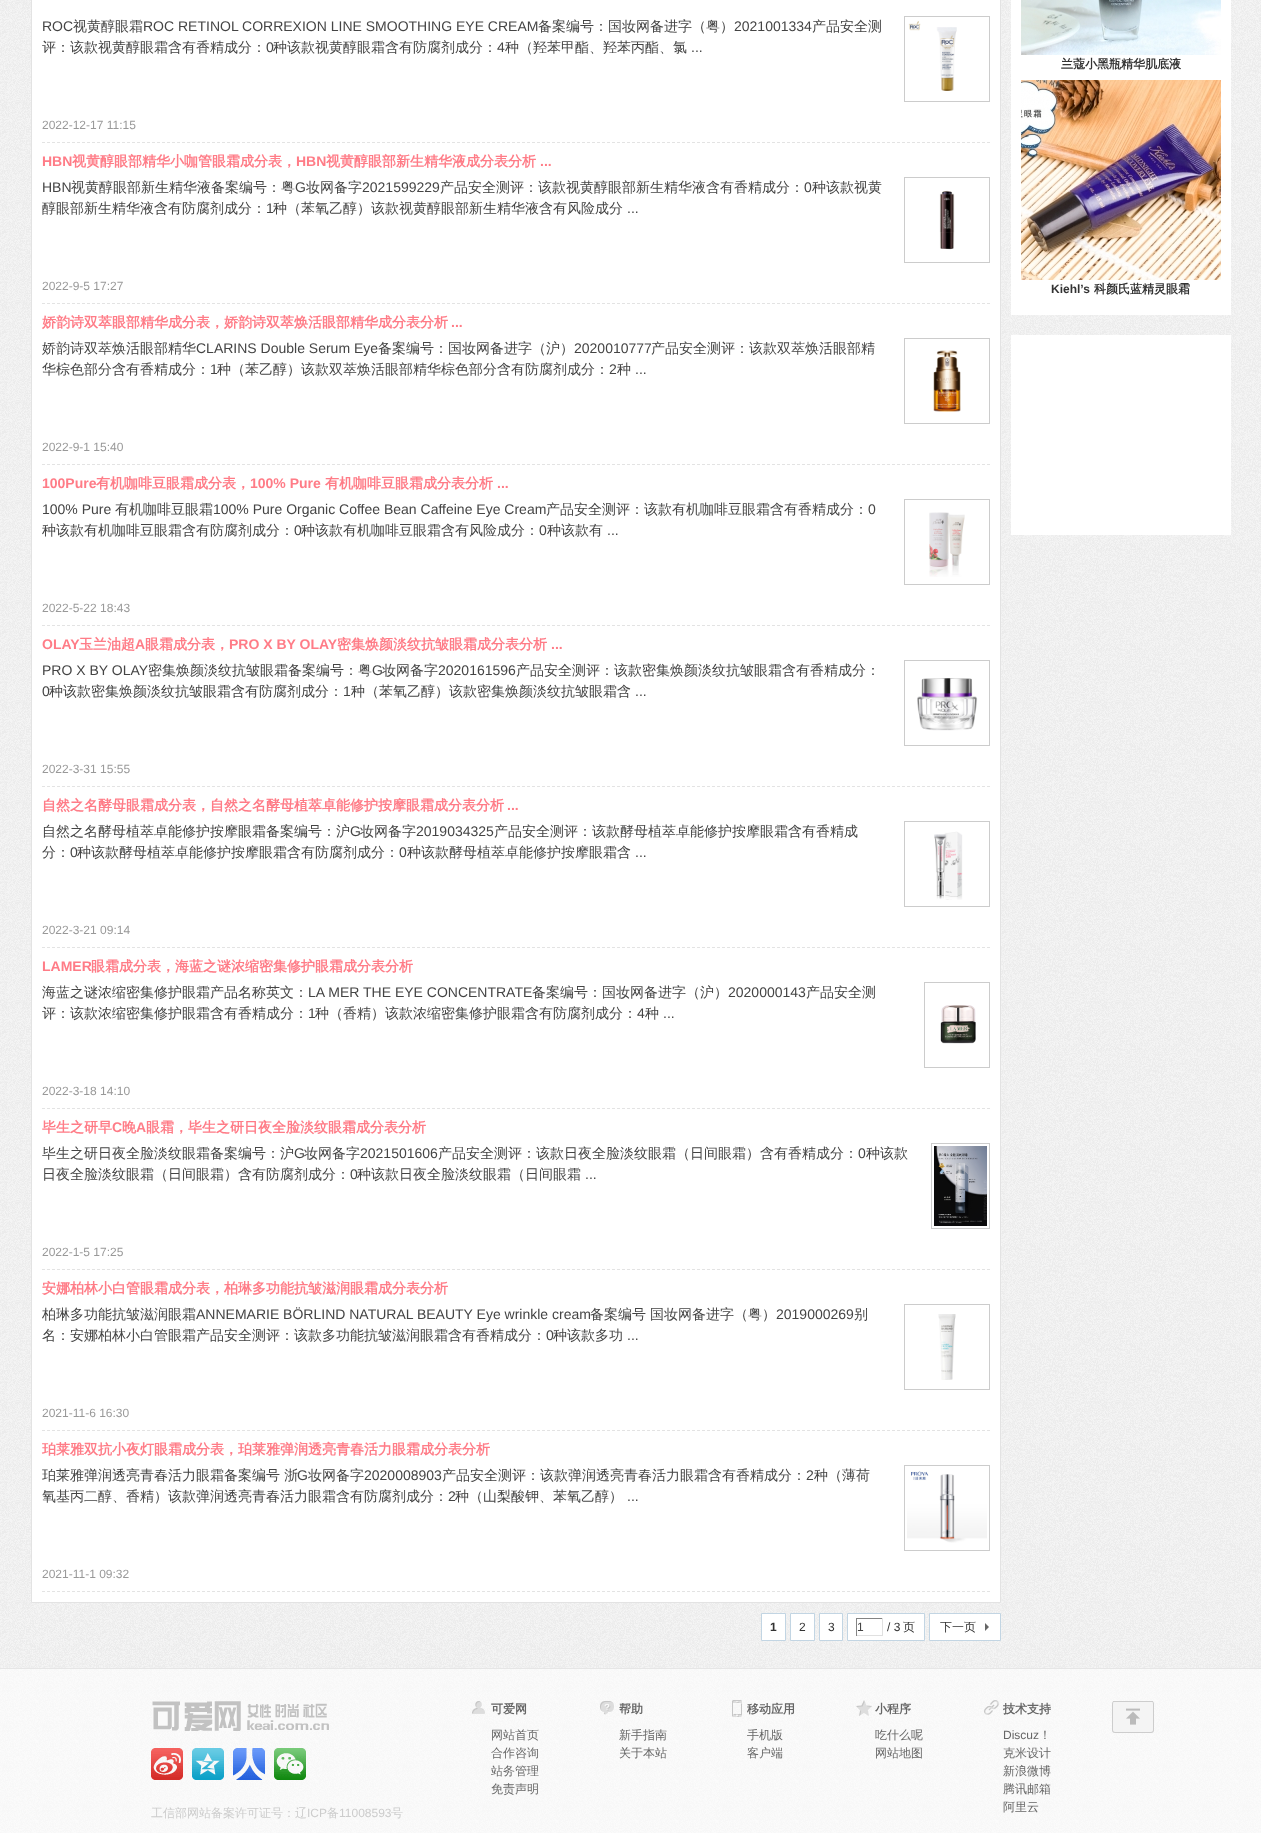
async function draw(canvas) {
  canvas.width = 1261
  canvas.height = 1833
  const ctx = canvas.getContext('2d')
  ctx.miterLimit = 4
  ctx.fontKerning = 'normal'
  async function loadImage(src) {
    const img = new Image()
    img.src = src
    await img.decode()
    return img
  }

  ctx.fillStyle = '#fff'
  ctx.fillRect(0, 0, 1261, 1833)
  ctx.drawImage(await loadImage('image0.png'), 0, 0, 1261, 1668)
  ctx.beginPath()
  ctx.rect(31.5, -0.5, 969, 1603)
  ctx.fill()
  ctx.strokeStyle = '#e3e3e3'
  ctx.stroke()
  ctx.beginPath()
  ctx.moveTo(42, 142.5)
  ctx.lineTo(990, 142.5)
  ctx.setLineDash([3, 2])
  ctx.stroke()
  ctx.font = '14px Liberation Sans'
  ctx.fillStyle = '#444'
  ctx.fillText('ROC', 42, 31)
  ctx.font = '500 14px WenQuanYi Zen Hei'
  ctx.fillText('视黄醇眼霜', 73, 31)
  ctx.font = '14px Liberation Sans'
  ctx.fillText('ROC RETINOL CORREXION LINE SMOOTHING EYE CREAM', 143, 31)
  ctx.font = '500 14px WenQuanYi Zen Hei'
  ctx.fillText('备案编号：国妆网备进字（粤）', 538, 31)
  ctx.font = '14px Liberation Sans'
  ctx.fillText('2021001334', 734, 31)
  ctx.font = '500 14px WenQuanYi Zen Hei'
  ctx.fillText('产品安全测', 812, 31)
  ctx.strokeStyle = '#ccc'
  ctx.setLineDash([])
  ctx.strokeRect(904.5, 16.5, 85, 85)
  ctx.drawImage(await loadImage('image1.png'), 908, 21, 49, 70)
  ctx.fillText('评：该款视黄醇眼霜含有香精成分：', 42, 52)
  ctx.font = '14px Liberation Sans'
  ctx.fillText('0', 266, 52)
  ctx.font = '500 14px WenQuanYi Zen Hei'
  ctx.fillText('种该款视黄醇眼霜含有防腐剂成分：', 273, 52)
  ctx.font = '14px Liberation Sans'
  ctx.fillText('4', 497, 52)
  ctx.font = '500 14px WenQuanYi Zen Hei'
  ctx.fillText('种（羟苯甲酯、羟苯丙酯、氯', 505, 52)
  ctx.font = '14px Liberation Sans'
  ctx.fillText('...', 691, 52)
  ctx.font = '12px Liberation Sans'
  ctx.fillStyle = '#999'
  ctx.fillText('2022-12-17 11:15', 42, 129)
  ctx.beginPath()
  ctx.moveTo(42, 303.5)
  ctx.lineTo(990, 303.5)
  ctx.strokeStyle = '#e3e3e3'
  ctx.setLineDash([3, 2])
  ctx.stroke()
  ctx.font = 'bold 14px Liberation Sans'
  ctx.fillStyle = '#ff7c87'
  ctx.fillText('HBN', 42, 166)
  ctx.font = 'bold 14px WenQuanYi Zen Hei'
  ctx.fillText('视黄醇眼部精华小咖管眼霜成分表，', 72, 166)
  ctx.font = 'bold 14px Liberation Sans'
  ctx.fillText('HBN', 296, 166)
  ctx.font = 'bold 14px WenQuanYi Zen Hei'
  ctx.fillText('视黄醇眼部新生精华液成分表分析', 326, 166)
  ctx.font = 'bold 14px Liberation Sans'
  ctx.fillText('...', 540, 166)
  ctx.font = '14px Liberation Sans'
  ctx.fillStyle = '#444'
  ctx.fillText('HBN', 42, 192)
  ctx.font = '500 14px WenQuanYi Zen Hei'
  ctx.fillText('视黄醇眼部新生精华液备案编号：粤', 71, 192)
  ctx.font = '14px Liberation Sans'
  ctx.fillText('G', 295, 192)
  ctx.font = '500 14px WenQuanYi Zen Hei'
  ctx.fillText('妆网备字', 306, 192)
  ctx.font = '14px Liberation Sans'
  ctx.fillText('2021599229', 362, 192)
  ctx.font = '500 14px WenQuanYi Zen Hei'
  ctx.fillText('产品安全测评：该款视黄醇眼部新生精华液含有香精成分：', 440, 192)
  ctx.font = '14px Liberation Sans'
  ctx.fillText('0', 804, 192)
  ctx.font = '500 14px WenQuanYi Zen Hei'
  ctx.fillText('种该款视黄', 812, 192)
  ctx.strokeStyle = '#ccc'
  ctx.setLineDash([])
  ctx.strokeRect(904.5, 177.5, 85, 85)
  ctx.drawImage(await loadImage('image2.png'), 939, 190, 16, 60)
  ctx.fillText('醇眼部新生精华液含有防腐剂成分：', 42, 213)
  ctx.font = '14px Liberation Sans'
  ctx.fillText('1', 266, 213)
  ctx.font = '500 14px WenQuanYi Zen Hei'
  ctx.fillText('种（苯氧乙醇）该款视黄醇眼部新生精华液含有风险成分', 273, 213)
  ctx.font = '14px Liberation Sans'
  ctx.fillText('...', 627, 213)
  ctx.font = '12px Liberation Sans'
  ctx.fillStyle = '#999'
  ctx.fillText('2022-9-5 17:27', 42, 290)
  ctx.beginPath()
  ctx.moveTo(42, 464.5)
  ctx.lineTo(990, 464.5)
  ctx.strokeStyle = '#e3e3e3'
  ctx.setLineDash([3, 2])
  ctx.stroke()
  ctx.font = 'bold 14px WenQuanYi Zen Hei'
  ctx.fillStyle = '#ff7c87'
  ctx.fillText('娇韵诗双萃眼部精华成分表，娇韵诗双萃焕活眼部精华成分表分析', 42, 327)
  ctx.font = 'bold 14px Liberation Sans'
  ctx.fillText('...', 451, 327)
  ctx.font = '500 14px WenQuanYi Zen Hei'
  ctx.fillStyle = '#444'
  ctx.fillText('娇韵诗双萃焕活眼部精华', 42, 353)
  ctx.font = '14px Liberation Sans'
  ctx.fillText('CLARINS Double Serum Eye', 196, 353)
  ctx.font = '500 14px WenQuanYi Zen Hei'
  ctx.fillText('备案编号：国妆网备进字（沪）', 378, 353)
  ctx.font = '14px Liberation Sans'
  ctx.fillText('2020010777', 574, 353)
  ctx.font = '500 14px WenQuanYi Zen Hei'
  ctx.fillText('产品安全测评：该款双萃焕活眼部精', 651, 353)
  ctx.strokeStyle = '#ccc'
  ctx.setLineDash([])
  ctx.strokeRect(904.5, 338.5, 85, 85)
  ctx.drawImage(await loadImage('image3.png'), 933, 350, 28, 62)
  ctx.fillText('华棕色部分含有香精成分：', 42, 374)
  ctx.font = '14px Liberation Sans'
  ctx.fillText('1', 210, 374)
  ctx.font = '500 14px WenQuanYi Zen Hei'
  ctx.fillText('种（苯乙醇）该款双萃焕活眼部精华棕色部分含有防腐剂成分：', 217, 374)
  ctx.font = '14px Liberation Sans'
  ctx.fillText('2', 609, 374)
  ctx.font = '500 14px WenQuanYi Zen Hei'
  ctx.fillText('种', 617, 374)
  ctx.font = '14px Liberation Sans'
  ctx.fillText('...', 635, 374)
  ctx.font = '12px Liberation Sans'
  ctx.fillStyle = '#999'
  ctx.fillText('2022-9-1 15:40', 42, 451)
  ctx.beginPath()
  ctx.moveTo(42, 625.5)
  ctx.lineTo(990, 625.5)
  ctx.strokeStyle = '#e3e3e3'
  ctx.setLineDash([3, 2])
  ctx.stroke()
  ctx.font = 'bold 14px Liberation Sans'
  ctx.fillStyle = '#ff7c87'
  ctx.fillText('100Pure', 42, 488)
  ctx.font = 'bold 14px WenQuanYi Zen Hei'
  ctx.fillText('有机咖啡豆眼霜成分表，', 96, 488)
  ctx.font = 'bold 14px Liberation Sans'
  ctx.fillText('100% Pure', 250, 488)
  ctx.font = 'bold 14px WenQuanYi Zen Hei'
  ctx.fillText('有机咖啡豆眼霜成分表分析', 325, 488)
  ctx.font = 'bold 14px Liberation Sans'
  ctx.fillText('...', 497, 488)
  ctx.font = '14px Liberation Sans'
  ctx.fillStyle = '#444'
  ctx.fillText('100% Pure', 42, 514)
  ctx.font = '500 14px WenQuanYi Zen Hei'
  ctx.fillText('有机咖啡豆眼霜', 115, 514)
  ctx.font = '14px Liberation Sans'
  ctx.fillText('100% Pure Organic Coffee Bean Caffeine Eye Cream', 213, 514)
  ctx.font = '500 14px WenQuanYi Zen Hei'
  ctx.fillText('产品安全测评：该款有机咖啡豆眼霜含有香精成分：', 546, 514)
  ctx.font = '14px Liberation Sans'
  ctx.fillText('0', 868, 514)
  ctx.strokeStyle = '#ccc'
  ctx.setLineDash([])
  ctx.strokeRect(904.5, 499.5, 85, 85)
  ctx.drawImage(await loadImage('image4.png'), 929, 512, 36, 65)
  ctx.font = '500 14px WenQuanYi Zen Hei'
  ctx.fillText('种该款有机咖啡豆眼霜含有防腐剂成分：', 42, 535)
  ctx.font = '14px Liberation Sans'
  ctx.fillText('0', 294, 535)
  ctx.font = '500 14px WenQuanYi Zen Hei'
  ctx.fillText('种该款有机咖啡豆眼霜含有风险成分：', 301, 535)
  ctx.font = '14px Liberation Sans'
  ctx.fillText('0', 539, 535)
  ctx.font = '500 14px WenQuanYi Zen Hei'
  ctx.fillText('种该款有', 547, 535)
  ctx.font = '14px Liberation Sans'
  ctx.fillText('...', 607, 535)
  ctx.font = '12px Liberation Sans'
  ctx.fillStyle = '#999'
  ctx.fillText('2022-5-22 18:43', 42, 612)
  ctx.beginPath()
  ctx.moveTo(42, 786.5)
  ctx.lineTo(990, 786.5)
  ctx.strokeStyle = '#e3e3e3'
  ctx.setLineDash([3, 2])
  ctx.stroke()
  ctx.font = 'bold 14px Liberation Sans'
  ctx.fillStyle = '#ff7c87'
  ctx.fillText('OLAY', 42, 649)
  ctx.font = 'bold 14px WenQuanYi Zen Hei'
  ctx.fillText('玉兰油超', 79, 649)
  ctx.font = 'bold 14px Liberation Sans'
  ctx.fillText('A', 135, 649)
  ctx.font = 'bold 14px WenQuanYi Zen Hei'
  ctx.fillText('眼霜成分表，', 145, 649)
  ctx.font = 'bold 14px Liberation Sans'
  ctx.fillText('PRO X BY OLAY', 229, 649)
  ctx.font = 'bold 14px WenQuanYi Zen Hei'
  ctx.fillText('密集焕颜淡纹抗皱眼霜成分表分析', 337, 649)
  ctx.font = 'bold 14px Liberation Sans'
  ctx.fillText('...', 551, 649)
  ctx.font = '14px Liberation Sans'
  ctx.fillStyle = '#444'
  ctx.fillText('PRO X BY OLAY', 42, 675)
  ctx.font = '500 14px WenQuanYi Zen Hei'
  ctx.fillText('密集焕颜淡纹抗皱眼霜备案编号：粤', 148, 675)
  ctx.font = '14px Liberation Sans'
  ctx.fillText('G', 372, 675)
  ctx.font = '500 14px WenQuanYi Zen Hei'
  ctx.fillText('妆网备字', 382, 675)
  ctx.font = '14px Liberation Sans'
  ctx.fillText('2020161596', 438, 675)
  ctx.font = '500 14px WenQuanYi Zen Hei'
  ctx.fillText('产品安全测评：该款密集焕颜淡纹抗皱眼霜含有香精成分：', 516, 675)
  ctx.strokeStyle = '#ccc'
  ctx.setLineDash([])
  ctx.strokeRect(904.5, 660.5, 85, 85)
  ctx.drawImage(await loadImage('image5.png'), 917, 678, 61, 53)
  ctx.font = '14px Liberation Sans'
  ctx.fillText('0', 42, 696)
  ctx.font = '500 14px WenQuanYi Zen Hei'
  ctx.fillText('种该款密集焕颜淡纹抗皱眼霜含有防腐剂成分：', 49, 696)
  ctx.font = '14px Liberation Sans'
  ctx.fillText('1', 343, 696)
  ctx.font = '500 14px WenQuanYi Zen Hei'
  ctx.fillText('种（苯氧乙醇）该款密集焕颜淡纹抗皱眼霜含', 351, 696)
  ctx.font = '14px Liberation Sans'
  ctx.fillText('...', 635, 696)
  ctx.font = '12px Liberation Sans'
  ctx.fillStyle = '#999'
  ctx.fillText('2022-3-31 15:55', 42, 773)
  ctx.beginPath()
  ctx.moveTo(42, 947.5)
  ctx.lineTo(990, 947.5)
  ctx.strokeStyle = '#e3e3e3'
  ctx.setLineDash([3, 2])
  ctx.stroke()
  ctx.font = 'bold 14px WenQuanYi Zen Hei'
  ctx.fillStyle = '#ff7c87'
  ctx.fillText('自然之名酵母眼霜成分表，自然之名酵母植萃卓能修护按摩眼霜成分表分析', 42, 810)
  ctx.font = 'bold 14px Liberation Sans'
  ctx.fillText('...', 507, 810)
  ctx.font = '500 14px WenQuanYi Zen Hei'
  ctx.fillStyle = '#444'
  ctx.fillText('自然之名酵母植萃卓能修护按摩眼霜备案编号：沪', 42, 836)
  ctx.font = '14px Liberation Sans'
  ctx.fillText('G', 350, 836)
  ctx.font = '500 14px WenQuanYi Zen Hei'
  ctx.fillText('妆网备字', 360, 836)
  ctx.font = '14px Liberation Sans'
  ctx.fillText('2019034325', 416, 836)
  ctx.font = '500 14px WenQuanYi Zen Hei'
  ctx.fillText('产品安全测评：该款酵母植萃卓能修护按摩眼霜含有香精成', 494, 836)
  ctx.strokeStyle = '#ccc'
  ctx.setLineDash([])
  ctx.strokeRect(904.5, 821.5, 85, 85)
  ctx.drawImage(await loadImage('image6.png'), 934, 831, 29, 69)
  ctx.fillText('分：', 42, 857)
  ctx.font = '14px Liberation Sans'
  ctx.fillText('0', 70, 857)
  ctx.font = '500 14px WenQuanYi Zen Hei'
  ctx.fillText('种该款酵母植萃卓能修护按摩眼霜含有防腐剂成分：', 77, 857)
  ctx.font = '14px Liberation Sans'
  ctx.fillText('0', 399, 857)
  ctx.font = '500 14px WenQuanYi Zen Hei'
  ctx.fillText('种该款酵母植萃卓能修护按摩眼霜含', 407, 857)
  ctx.font = '14px Liberation Sans'
  ctx.fillText('...', 635, 857)
  ctx.font = '12px Liberation Sans'
  ctx.fillStyle = '#999'
  ctx.fillText('2022-3-21 09:14', 42, 934)
  ctx.beginPath()
  ctx.moveTo(42, 1108.5)
  ctx.lineTo(990, 1108.5)
  ctx.strokeStyle = '#e3e3e3'
  ctx.setLineDash([3, 2])
  ctx.stroke()
  ctx.font = 'bold 14px Liberation Sans'
  ctx.fillStyle = '#ff7c87'
  ctx.fillText('LAMER', 42, 971)
  ctx.font = 'bold 14px WenQuanYi Zen Hei'
  ctx.fillText('眼霜成分表，海蓝之谜浓缩密集修护眼霜成分表分析', 91, 971)
  ctx.font = '500 14px WenQuanYi Zen Hei'
  ctx.fillStyle = '#444'
  ctx.fillText('海蓝之谜浓缩密集修护眼霜产品名称英文：', 42, 997)
  ctx.font = '14px Liberation Sans'
  ctx.fillText('LA MER THE EYE CONCENTRATE', 308, 997)
  ctx.font = '500 14px WenQuanYi Zen Hei'
  ctx.fillText('备案编号：国妆网备进字（沪）', 532, 997)
  ctx.font = '14px Liberation Sans'
  ctx.fillText('2020000143', 728, 997)
  ctx.font = '500 14px WenQuanYi Zen Hei'
  ctx.fillText('产品安全测', 806, 997)
  ctx.strokeStyle = '#ccc'
  ctx.setLineDash([])
  ctx.strokeRect(924.5, 982.5, 65, 85)
  ctx.drawImage(await loadImage('image7.png'), 940, 1005, 36, 39)
  ctx.fillText('评：该款浓缩密集修护眼霜含有香精成分：', 42, 1018)
  ctx.font = '14px Liberation Sans'
  ctx.fillText('1', 308, 1018)
  ctx.font = '500 14px WenQuanYi Zen Hei'
  ctx.fillText('种（香精）该款浓缩密集修护眼霜含有防腐剂成分：', 315, 1018)
  ctx.font = '14px Liberation Sans'
  ctx.fillText('4', 637, 1018)
  ctx.font = '500 14px WenQuanYi Zen Hei'
  ctx.fillText('种', 645, 1018)
  ctx.font = '14px Liberation Sans'
  ctx.fillText('...', 663, 1018)
  ctx.font = '12px Liberation Sans'
  ctx.fillStyle = '#999'
  ctx.fillText('2022-3-18 14:10', 42, 1095)
  ctx.beginPath()
  ctx.moveTo(42, 1269.5)
  ctx.lineTo(990, 1269.5)
  ctx.strokeStyle = '#e3e3e3'
  ctx.setLineDash([3, 2])
  ctx.stroke()
  ctx.font = 'bold 14px WenQuanYi Zen Hei'
  ctx.fillStyle = '#ff7c87'
  ctx.fillText('毕生之研早', 42, 1132)
  ctx.font = 'bold 14px Liberation Sans'
  ctx.fillText('C', 112, 1132)
  ctx.font = 'bold 14px WenQuanYi Zen Hei'
  ctx.fillText('晚', 122, 1132)
  ctx.font = 'bold 14px Liberation Sans'
  ctx.fillText('A', 136, 1132)
  ctx.font = 'bold 14px WenQuanYi Zen Hei'
  ctx.fillText('眼霜，毕生之研日夜全脸淡纹眼霜成分表分析', 146, 1132)
  ctx.font = '500 14px WenQuanYi Zen Hei'
  ctx.fillStyle = '#444'
  ctx.fillText('毕生之研日夜全脸淡纹眼霜备案编号：沪', 42, 1158)
  ctx.font = '14px Liberation Sans'
  ctx.fillText('G', 294, 1158)
  ctx.font = '500 14px WenQuanYi Zen Hei'
  ctx.fillText('妆网备字', 304, 1158)
  ctx.font = '14px Liberation Sans'
  ctx.fillText('2021501606', 360, 1158)
  ctx.font = '500 14px WenQuanYi Zen Hei'
  ctx.fillText('产品安全测评：该款日夜全脸淡纹眼霜（日间眼霜）含有香精成分：', 438, 1158)
  ctx.font = '14px Liberation Sans'
  ctx.fillText('0', 858, 1158)
  ctx.font = '500 14px WenQuanYi Zen Hei'
  ctx.fillText('种该款', 866, 1158)
  ctx.strokeStyle = '#ccc'
  ctx.setLineDash([])
  ctx.strokeRect(931.5, 1143.5, 58, 85)
  ctx.drawImage(await loadImage('image8.png'), 934, 1146, 53, 80)
  ctx.fillText('日夜全脸淡纹眼霜（日间眼霜）含有防腐剂成分：', 42, 1179)
  ctx.font = '14px Liberation Sans'
  ctx.fillText('0', 350, 1179)
  ctx.font = '500 14px WenQuanYi Zen Hei'
  ctx.fillText('种该款日夜全脸淡纹眼霜（日间眼霜', 357, 1179)
  ctx.font = '14px Liberation Sans'
  ctx.fillText('...', 585, 1179)
  ctx.font = '12px Liberation Sans'
  ctx.fillStyle = '#999'
  ctx.fillText('2022-1-5 17:25', 42, 1256)
  ctx.beginPath()
  ctx.moveTo(42, 1430.5)
  ctx.lineTo(990, 1430.5)
  ctx.strokeStyle = '#e3e3e3'
  ctx.setLineDash([3, 2])
  ctx.stroke()
  ctx.font = 'bold 14px WenQuanYi Zen Hei'
  ctx.fillStyle = '#ff7c87'
  ctx.fillText('安娜柏林小白管眼霜成分表，柏琳多功能抗皱滋润眼霜成分表分析', 42, 1293)
  ctx.font = '500 14px WenQuanYi Zen Hei'
  ctx.fillStyle = '#444'
  ctx.fillText('柏琳多功能抗皱滋润眼霜', 42, 1319)
  ctx.font = '14px Liberation Sans'
  ctx.fillText('ANNEMARIE BÖRLIND NATURAL BEAUTY Eye wrinkle cream', 196, 1319)
  ctx.font = '500 14px WenQuanYi Zen Hei'
  ctx.fillText('备案编号', 590, 1319)
  ctx.fillText('国妆网备进字（粤）', 650, 1319)
  ctx.font = '14px Liberation Sans'
  ctx.fillText('2019000269', 776, 1319)
  ctx.font = '500 14px WenQuanYi Zen Hei'
  ctx.fillText('别', 854, 1319)
  ctx.strokeStyle = '#ccc'
  ctx.setLineDash([])
  ctx.strokeRect(904.5, 1304.5, 85, 85)
  ctx.drawImage(await loadImage('image9.png'), 938, 1314, 18, 66)
  ctx.fillText('名：安娜柏林小白管眼霜产品安全测评：该款多功能抗皱滋润眼霜含有香精成分：', 42, 1340)
  ctx.font = '14px Liberation Sans'
  ctx.fillText('0', 546, 1340)
  ctx.font = '500 14px WenQuanYi Zen Hei'
  ctx.fillText('种该款多功', 553, 1340)
  ctx.font = '14px Liberation Sans'
  ctx.fillText('...', 627, 1340)
  ctx.font = '12px Liberation Sans'
  ctx.fillStyle = '#999'
  ctx.fillText('2021-11-6 16:30', 42, 1417)
  ctx.beginPath()
  ctx.moveTo(42, 1591.5)
  ctx.lineTo(990, 1591.5)
  ctx.strokeStyle = '#e3e3e3'
  ctx.setLineDash([3, 2])
  ctx.stroke()
  ctx.font = 'bold 14px WenQuanYi Zen Hei'
  ctx.fillStyle = '#ff7c87'
  ctx.fillText('珀莱雅双抗小夜灯眼霜成分表，珀莱雅弹润透亮青春活力眼霜成分表分析', 42, 1454)
  ctx.font = '500 14px WenQuanYi Zen Hei'
  ctx.fillStyle = '#444'
  ctx.fillText('珀莱雅弹润透亮青春活力眼霜备案编号 浙', 42, 1480)
  ctx.font = '14px Liberation Sans'
  ctx.fillText('G', 297, 1480)
  ctx.font = '500 14px WenQuanYi Zen Hei'
  ctx.fillText('妆网备字', 308, 1480)
  ctx.font = '14px Liberation Sans'
  ctx.fillText('2020008903', 364, 1480)
  ctx.font = '500 14px WenQuanYi Zen Hei'
  ctx.fillText('产品安全测评：该款弹润透亮青春活力眼霜含有香精成分：', 442, 1480)
  ctx.font = '14px Liberation Sans'
  ctx.fillText('2', 806, 1480)
  ctx.font = '500 14px WenQuanYi Zen Hei'
  ctx.fillText('种（薄荷', 814, 1480)
  ctx.strokeStyle = '#ccc'
  ctx.setLineDash([])
  ctx.strokeRect(904.5, 1465.5, 85, 85)
  ctx.drawImage(await loadImage('image10.png'), 907, 1471, 80, 72)
  ctx.fillText('氧基丙二醇、香精）该款弹润透亮青春活力眼霜含有防腐剂成分：', 42, 1501)
  ctx.font = '14px Liberation Sans'
  ctx.fillText('2', 448, 1501)
  ctx.font = '500 14px WenQuanYi Zen Hei'
  ctx.fillText('种（山梨酸钾、苯氧乙醇）', 455, 1501)
  ctx.font = '14px Liberation Sans'
  ctx.fillText('...', 627, 1501)
  ctx.font = '12px Liberation Sans'
  ctx.fillStyle = '#999'
  ctx.fillText('2021-11-1 09:32', 42, 1578)
  ctx.fillStyle = '#fff'
  ctx.beginPath()
  ctx.rect(761.5, 1613.5, 24, 27)
  ctx.fill()
  ctx.strokeStyle = '#c2d5e3'
  ctx.stroke()
  ctx.font = 'bold 12px Liberation Sans'
  ctx.fillStyle = '#333'
  ctx.fillText('1', 770, 1631)
  ctx.fillStyle = '#fff'
  ctx.beginPath()
  ctx.rect(790.5, 1613.5, 24, 27)
  ctx.fill()
  ctx.stroke()
  ctx.font = '12px Liberation Sans'
  ctx.fillStyle = '#333'
  ctx.fillText('2', 799, 1631)
  ctx.fillStyle = '#fff'
  ctx.beginPath()
  ctx.rect(819.5, 1613.5, 23, 27)
  ctx.fill()
  ctx.stroke()
  ctx.fillStyle = '#333'
  ctx.fillText('3', 828, 1631)
  ctx.fillStyle = '#fff'
  ctx.beginPath()
  ctx.rect(847.5, 1613.5, 77, 27)
  ctx.fill()
  ctx.stroke()
  ctx.fillStyle = '#848484'
  ctx.fillRect(856, 1618, 27, 1)
  ctx.fillStyle = '#e0e0e0'
  ctx.fillRect(882, 1618, 1, 18)
  ctx.fillRect(856, 1635, 27, 1)
  ctx.fillStyle = '#848484'
  ctx.fillRect(856, 1618, 1, 18)
  ctx.fillStyle = '#444'
  ctx.fillText('1', 857, 1631)
  ctx.fillStyle = '#333'
  ctx.fillText('/ 3', 887, 1631)
  ctx.font = '500 12px WenQuanYi Zen Hei'
  ctx.fillText('页', 903, 1631)
  ctx.fillStyle = '#fff'
  ctx.beginPath()
  ctx.rect(929.5, 1613.5, 71, 27)
  ctx.fill()
  ctx.stroke()
  ctx.fillStyle = '#333'
  ctx.fillText('下一页', 940, 1631)
  ctx.fillStyle = '#666'
  ctx.beginPath()
  ctx.moveTo(985, 1631)
  ctx.lineTo(985, 1623)
  ctx.lineTo(989, 1627)
  ctx.closePath()
  ctx.fill()
  ctx.fillStyle = '#fff'
  ctx.fillRect(1011, 0, 220, 315)
  ctx.drawImage(await loadImage('image11.png'), 1021, 0, 200, 55)
  ctx.font = 'bold 12px WenQuanYi Zen Hei'
  ctx.fillStyle = '#333'
  ctx.fillText('兰蔻小黑瓶精华肌底液', 1061, 68)
  ctx.drawImage(await loadImage('image12.png'), 1021, 80, 200, 200)
  ctx.font = 'bold 12px Liberation Sans'
  ctx.fillText('Kiehl’s', 1051, 293)
  ctx.font = 'bold 12px WenQuanYi Zen Hei'
  ctx.fillText('科颜氏蓝精灵眼霜', 1094, 293)
  ctx.fillStyle = '#fff'
  ctx.fillRect(1011, 335, 220, 200)
  ctx.drawImage(await loadImage('image13.png'), 0, 1669, 1261, 164)
  ctx.fillStyle = '#e6e6e6'
  ctx.fillRect(0, 1668, 1261, 1)
  ctx.drawImage(await loadImage('image14.png'), 152, 1701, 177, 30)
  ctx.drawImage(await loadImage('image15.png'), 151, 1748, 32, 32)
  ctx.drawImage(await loadImage('image16.png'), 192, 1748, 32, 32)
  ctx.drawImage(await loadImage('image17.png'), 233, 1748, 32, 32)
  ctx.drawImage(await loadImage('image18.png'), 274, 1748, 32, 32)
  ctx.font = '500 12px WenQuanYi Zen Hei'
  ctx.fillStyle = '#ccc'
  ctx.fillText('工信部网站备案许可证号：辽', 151, 1817)
  ctx.font = '12px Liberation Sans'
  ctx.fillText('ICP', 307, 1817)
  ctx.font = '500 12px WenQuanYi Zen Hei'
  ctx.fillText('备', 327, 1817)
  ctx.font = '12px Liberation Sans'
  ctx.fillText('11008593', 339, 1817)
  ctx.font = '500 12px WenQuanYi Zen Hei'
  ctx.fillText('号', 391, 1817)
  ctx.drawImage(await loadImage('image19.png'), 472, 1701, 13, 13)
  ctx.font = 'bold 12px WenQuanYi Zen Hei'
  ctx.fillStyle = '#666'
  ctx.fillText('可爱网', 491, 1713)
  ctx.font = '500 12px WenQuanYi Zen Hei'
  ctx.fillText('网站首页', 491, 1739)
  ctx.fillText('合作咨询', 491, 1757)
  ctx.fillText('站务管理', 491, 1775)
  ctx.fillText('免责声明', 491, 1793)
  ctx.drawImage(await loadImage('image20.png'), 600, 1701, 14, 14)
  ctx.font = 'bold 12px WenQuanYi Zen Hei'
  ctx.fillText('帮助', 619, 1713)
  ctx.font = '500 12px WenQuanYi Zen Hei'
  ctx.fillText('新手指南', 619, 1739)
  ctx.fillText('关于本站', 619, 1757)
  ctx.drawImage(await loadImage('image21.png'), 732, 1700, 10, 17)
  ctx.font = 'bold 12px WenQuanYi Zen Hei'
  ctx.fillText('移动应用', 747, 1713)
  ctx.font = '500 12px WenQuanYi Zen Hei'
  ctx.fillText('手机版', 747, 1739)
  ctx.fillText('客户端', 747, 1757)
  ctx.drawImage(await loadImage('image22.png'), 856, 1700, 16, 16)
  ctx.font = 'bold 12px WenQuanYi Zen Hei'
  ctx.fillText('小程序', 875, 1713)
  ctx.font = '500 12px WenQuanYi Zen Hei'
  ctx.fillText('吃什么呢', 875, 1739)
  ctx.fillText('网站地图', 875, 1757)
  ctx.drawImage(await loadImage('image23.png'), 984, 1700, 15, 15)
  ctx.save()
  ctx.beginPath()
  ctx.rect(1003, 1694, 105, 32)
  ctx.clip()
  ctx.font = 'bold 12px WenQuanYi Zen Hei'
  ctx.fillText('技术支持', 1003, 1713)
  ctx.restore()
  ctx.font = '12px Liberation Sans'
  ctx.fillText('Discuz', 1003, 1739)
  ctx.font = '500 12px WenQuanYi Zen Hei'
  ctx.fillText('！', 1039, 1739)
  ctx.fillText('克米设计', 1003, 1757)
  ctx.fillText('新浪微博', 1003, 1775)
  ctx.fillText('腾讯邮箱', 1003, 1793)
  ctx.fillText('阿里云', 1003, 1811)
  ctx.fillStyle = '#f4f4f4'
  ctx.beginPath()
  ctx.roundRect(1112, 1701, 42, 32, 3)
  ctx.fill()
  ctx.fillStyle = '#cdcdcd'
  ctx.beginPath()
  ctx.moveTo(1115, 1701)
  ctx.lineTo(1151, 1701)
  ctx.bezierCurveTo(1153, 1701, 1154, 1702, 1154, 1704)
  ctx.lineTo(1154, 1730)
  ctx.bezierCurveTo(1154, 1732, 1153, 1733, 1151, 1733)
  ctx.lineTo(1115, 1733)
  ctx.bezierCurveTo(1113, 1733, 1112, 1732, 1112, 1730)
  ctx.lineTo(1112, 1704)
  ctx.bezierCurveTo(1112, 1702, 1113, 1701, 1115, 1701)
  ctx.closePath()
  ctx.moveTo(1115, 1701)
  ctx.lineTo(1151, 1701)
  ctx.bezierCurveTo(1152, 1701, 1153, 1702, 1153, 1704)
  ctx.lineTo(1153, 1730)
  ctx.bezierCurveTo(1153, 1731, 1152, 1732, 1151, 1732)
  ctx.lineTo(1115, 1732)
  ctx.bezierCurveTo(1114, 1732, 1113, 1731, 1113, 1730)
  ctx.lineTo(1113, 1704)
  ctx.bezierCurveTo(1113, 1702, 1114, 1701, 1115, 1701)
  ctx.closePath()
  ctx.fill('evenodd')
  ctx.fillRect(1113, 1701, 40, 1)
  ctx.drawImage(await loadImage('image24.png'), 1126, 1708, 14, 17)
}

draw(document.querySelector('canvas'))
